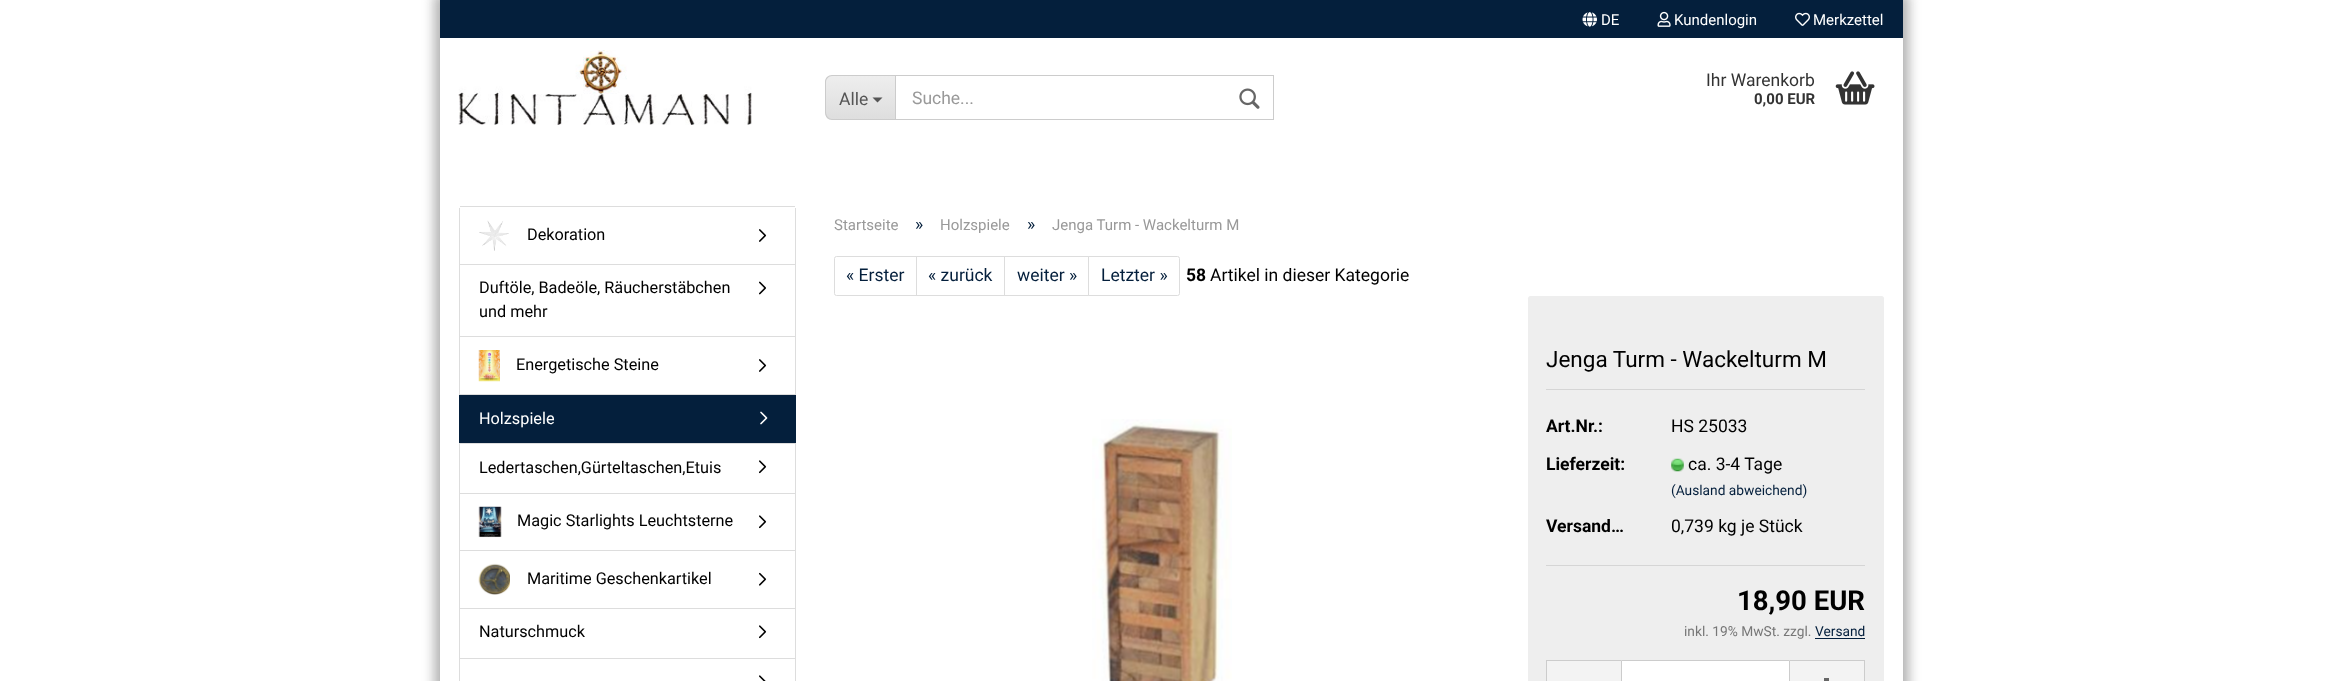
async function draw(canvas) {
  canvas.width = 2342
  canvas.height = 681
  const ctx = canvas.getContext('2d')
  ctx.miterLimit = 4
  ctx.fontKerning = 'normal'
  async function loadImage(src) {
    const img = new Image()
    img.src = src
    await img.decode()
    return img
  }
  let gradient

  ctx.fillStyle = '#fff'
  ctx.fillRect(0, 0, 2342, 681)
  ctx.fillStyle = '#b3b3b3'
  ctx.filter = 'blur(6px)'
  ctx.beginPath()
  ctx.rect(434, -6, 1475, 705)
  ctx.fill()
  ctx.filter = 'none'
  ctx.fillStyle = '#fff'
  ctx.fillRect(440, 38, 1463, 643)
  ctx.fillStyle = '#041f3c'
  ctx.fillRect(440, 0, 1463, 38)
  ctx.drawImage(await loadImage('image0.png'), 1582, 12, 15, 15)
  ctx.font = '15px Roboto'
  ctx.fillStyle = '#fff'
  ctx.fillText('DE', 1601, 25)
  ctx.drawImage(await loadImage('image1.png'), 1657, 11, 14, 16)
  ctx.fillText('Kundenlogin', 1674, 25)
  ctx.drawImage(await loadImage('image2.png'), 1795, 12, 15, 14)
  ctx.fillText('Merkzettel', 1813, 25)
  ctx.drawImage(await loadImage('image3.png'), 458, 50, 294, 75)
  ctx.save()
  ctx.beginPath()
  ctx.roundRect(825, 75, 70, 45, [8, 0, 0, 8])
  ctx.clip()
  gradient = ctx.createLinearGradient(861, 76, 861, 119)
  gradient.addColorStop(0, '#eee')
  gradient.addColorStop(1, '#dedede')
  ctx.fillStyle = gradient
  ctx.fillRect(825, 76, 70, 43)
  ctx.restore()
  ctx.fillStyle = '#ccc'
  ctx.beginPath()
  ctx.moveTo(832, 75)
  ctx.lineTo(895, 75)
  ctx.lineTo(895, 120)
  ctx.lineTo(832, 120)
  ctx.bezierCurveTo(828, 120, 825, 117, 825, 112)
  ctx.lineTo(825, 82)
  ctx.bezierCurveTo(825, 78, 828, 75, 832, 75)
  ctx.closePath()
  ctx.moveTo(832, 76)
  ctx.lineTo(895, 76)
  ctx.lineTo(895, 119)
  ctx.lineTo(832, 119)
  ctx.bezierCurveTo(829, 119, 826, 116, 826, 112)
  ctx.lineTo(826, 82)
  ctx.bezierCurveTo(826, 79, 829, 76, 832, 76)
  ctx.closePath()
  ctx.fill('evenodd')
  ctx.font = '17.5px Roboto'
  ctx.fillStyle = '#555'
  ctx.fillText('Alle', 839, 105)
  ctx.beginPath()
  ctx.moveTo(872.5, 97.5)
  ctx.lineTo(882.5, 97.5)
  ctx.lineTo(877.5, 102.5)
  ctx.closePath()
  ctx.fill()
  ctx.strokeStyle = '#ccc'
  ctx.strokeRect(895.5, 75.5, 378, 44)
  ctx.fillStyle = '#999'
  ctx.fillText('Suche...', 912, 104)
  ctx.drawImage(await loadImage('image4.png'), 1239, 88, 21, 21)
  ctx.fillStyle = '#333'
  ctx.fillText('Ihr Warenkorb', 1706, 86)
  ctx.font = 'bold 15px Roboto'
  ctx.fillText('0,00 EUR', 1754, 104)
  ctx.drawImage(await loadImage('image5.png'), 1835, 71, 40, 34)
  ctx.fillStyle = '#ddd'
  ctx.fillRect(460, 206, 335, 1)
  ctx.fillRect(795, 208, 1, 473)
  ctx.fillRect(459, 208, 1, 473)
  ctx.fillRect(460, 264, 335, 1)
  ctx.drawImage(await loadImage('image6.png'), 479, 220, 30, 31)
  ctx.font = '16.25px Roboto'
  ctx.fillStyle = '#000'
  ctx.fillText('Dekoration', 527, 240)
  ctx.drawImage(await loadImage('image7.png'), 759, 229, 8, 13)
  ctx.fillStyle = '#ddd'
  ctx.fillRect(460, 336, 335, 1)
  ctx.fillStyle = '#000'
  ctx.fillText('Duftöle, Badeöle, Räucherstäbchen', 479, 293)
  ctx.drawImage(await loadImage('image8.png'), 759, 281, 7, 14)
  ctx.fillText('und mehr', 479, 317)
  ctx.fillStyle = '#ddd'
  ctx.fillRect(460, 394, 335, 1)
  ctx.drawImage(await loadImage('image9.png'), 478, 350, 22, 32)
  ctx.fillStyle = '#000'
  ctx.fillText('Energetische Steine', 516, 370)
  ctx.drawImage(await loadImage('image7.png'), 759, 359, 8, 13)
  ctx.fillStyle = '#ddd'
  ctx.fillRect(460, 443, 335, 1)
  ctx.fillStyle = '#041f3c'
  ctx.fillRect(459, 395, 337, 48)
  ctx.fillStyle = '#fff'
  ctx.fillText('Holzspiele', 479, 424)
  ctx.drawImage(await loadImage('image10.png'), 760, 411, 8, 14)
  ctx.fillStyle = '#ddd'
  ctx.fillRect(460, 493, 335, 1)
  ctx.fillStyle = '#000'
  ctx.fillText('Ledertaschen,Gürteltaschen,Etuis', 479, 473)
  ctx.drawImage(await loadImage('image11.png'), 759, 460, 8, 14)
  ctx.fillStyle = '#ddd'
  ctx.fillRect(460, 550, 335, 1)
  ctx.drawImage(await loadImage('image12.png'), 478, 506, 24, 32)
  ctx.fillStyle = '#000'
  ctx.fillText('Magic Starlights Leuchtsterne', 517, 526)
  ctx.drawImage(await loadImage('image11.png'), 759, 515, 8, 14)
  ctx.fillStyle = '#ddd'
  ctx.fillRect(460, 608, 335, 1)
  ctx.drawImage(await loadImage('image13.png'), 478, 563, 32, 32)
  ctx.fillStyle = '#000'
  ctx.fillText('Maritime Geschenkartikel', 527, 584)
  ctx.drawImage(await loadImage('image14.png'), 759, 572, 8, 14)
  ctx.fillStyle = '#ddd'
  ctx.fillRect(460, 658, 335, 1)
  ctx.fillStyle = '#000'
  ctx.fillText('Naturschmuck', 479, 637)
  ctx.drawImage(await loadImage('image11.png'), 759, 625, 8, 14)
  ctx.drawImage(await loadImage('image15.png'), 759, 675, 7, 6)
  ctx.font = '15px Roboto'
  ctx.fillStyle = '#999'
  ctx.fillText('Startseite', 834, 230)
  ctx.font = '17.5px Roboto'
  ctx.fillStyle = '#041f3c'
  ctx.fillText('»', 915, 230)
  ctx.font = '15px Roboto'
  ctx.fillStyle = '#999'
  ctx.fillText('Holzspiele', 940, 230)
  ctx.font = '17.5px Roboto'
  ctx.fillStyle = '#041f3c'
  ctx.fillText('»', 1027, 230)
  ctx.font = '15px Roboto'
  ctx.fillStyle = '#999'
  ctx.fillText('Jenga Turm - Wackelturm M', 1052, 230)
  ctx.beginPath()
  ctx.roundRect(834.5, 256.5, 83, 39, [2, 0, 0, 2])
  ctx.strokeStyle = '#ddd'
  ctx.stroke()
  ctx.font = '17.5px Roboto'
  ctx.fillStyle = '#041f3c'
  ctx.fillText('« Erster', 846, 281)
  ctx.fillStyle = '#fff'
  ctx.fillRect(917, 257, 1, 38)
  ctx.strokeRect(916.5, 256.5, 88, 39)
  ctx.fillStyle = '#041f3c'
  ctx.fillText('« zurück', 928, 281)
  ctx.strokeRect(1004.5, 256.5, 84, 39)
  ctx.fillText('weiter »', 1017, 281)
  ctx.fillStyle = '#fff'
  ctx.beginPath()
  ctx.roundRect(1088.5, 256.5, 91, 39, [0, 2, 2, 0])
  ctx.fill()
  ctx.stroke()
  ctx.fillStyle = '#041f3c'
  ctx.fillText('Letzter »', 1101, 281)
  ctx.font = 'bold 17.5px Roboto'
  ctx.fillStyle = '#000'
  ctx.fillText('58', 1186, 281)
  ctx.font = '17.5px Roboto'
  ctx.fillText('Artikel in dieser Kategorie', 1210, 281)
  ctx.drawImage(await loadImage('image16.png'), 1092, 419, 140, 262)
  ctx.fillStyle = '#eee'
  ctx.beginPath()
  ctx.roundRect(1528, 296, 356, 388, 2.5)
  ctx.fill()
  ctx.fillStyle = '#d5d5d5'
  ctx.fillRect(1546, 389, 319, 1)
  ctx.font = '22.5px Roboto'
  ctx.fillStyle = '#000'
  ctx.fillText('Jenga Turm - Wackelturm M', 1546, 367)
  ctx.fillStyle = '#d5d5d5'
  ctx.fillRect(1546, 565, 319, 1)
  ctx.font = 'bold 17.5px Roboto'
  ctx.fillStyle = '#000'
  ctx.fillText('Art.Nr.:', 1546, 432)
  ctx.font = '17.5px Roboto'
  ctx.fillText('HS 25033', 1671, 432)
  ctx.font = 'bold 17.5px Roboto'
  ctx.fillText('Lieferzeit:', 1546, 470)
  ctx.drawImage(await loadImage('image17.png'), 1671, 458, 13, 14)
  ctx.font = '17.5px Roboto'
  ctx.fillText('ca. 3-4 Tage', 1688, 470)
  ctx.font = '13.75px Roboto'
  ctx.fillStyle = '#041f3c'
  ctx.fillText('(Ausland abweichend)', 1671, 495)
  ctx.font = 'bold 17.5px Roboto'
  ctx.fillStyle = '#000'
  ctx.fillText('Versand…', 1546, 532)
  ctx.font = '17.5px Roboto'
  ctx.fillText('0,739 kg je Stück', 1671, 532)
  ctx.font = 'bold 27.5px Roboto'
  ctx.fillText('18,90 EUR', 1737, 610)
  ctx.font = '13.75px Roboto'
  ctx.fillStyle = '#777'
  ctx.fillText('inkl. 19% MwSt. zzgl.', 1684, 636)
  ctx.fillStyle = '#041f3c'
  ctx.fillText('Versand', 1815, 636)
  ctx.fillRect(1815, 638, 50, 1)
  ctx.fillStyle = '#f3f3f3'
  ctx.fillRect(1547, 661, 74, 20)
  ctx.fillStyle = '#ccc'
  ctx.fillRect(1546, 660, 75, 1)
  ctx.fillRect(1546, 660, 1, 21)
  ctx.fillStyle = '#fff'
  ctx.beginPath()
  ctx.rect(1621.5, 660.5, 168, 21)
  ctx.fill()
  ctx.strokeStyle = '#ccc'
  ctx.stroke()
  ctx.fillStyle = '#f3f3f3'
  ctx.fillRect(1790, 661, 74, 20)
  ctx.fillStyle = '#ccc'
  ctx.fillRect(1790, 660, 75, 1)
  ctx.fillRect(1864, 660, 1, 21)
  ctx.fillStyle = '#666'
  ctx.fillRect(1824, 678, 5, 3)
}

draw(document.querySelector('canvas'))
